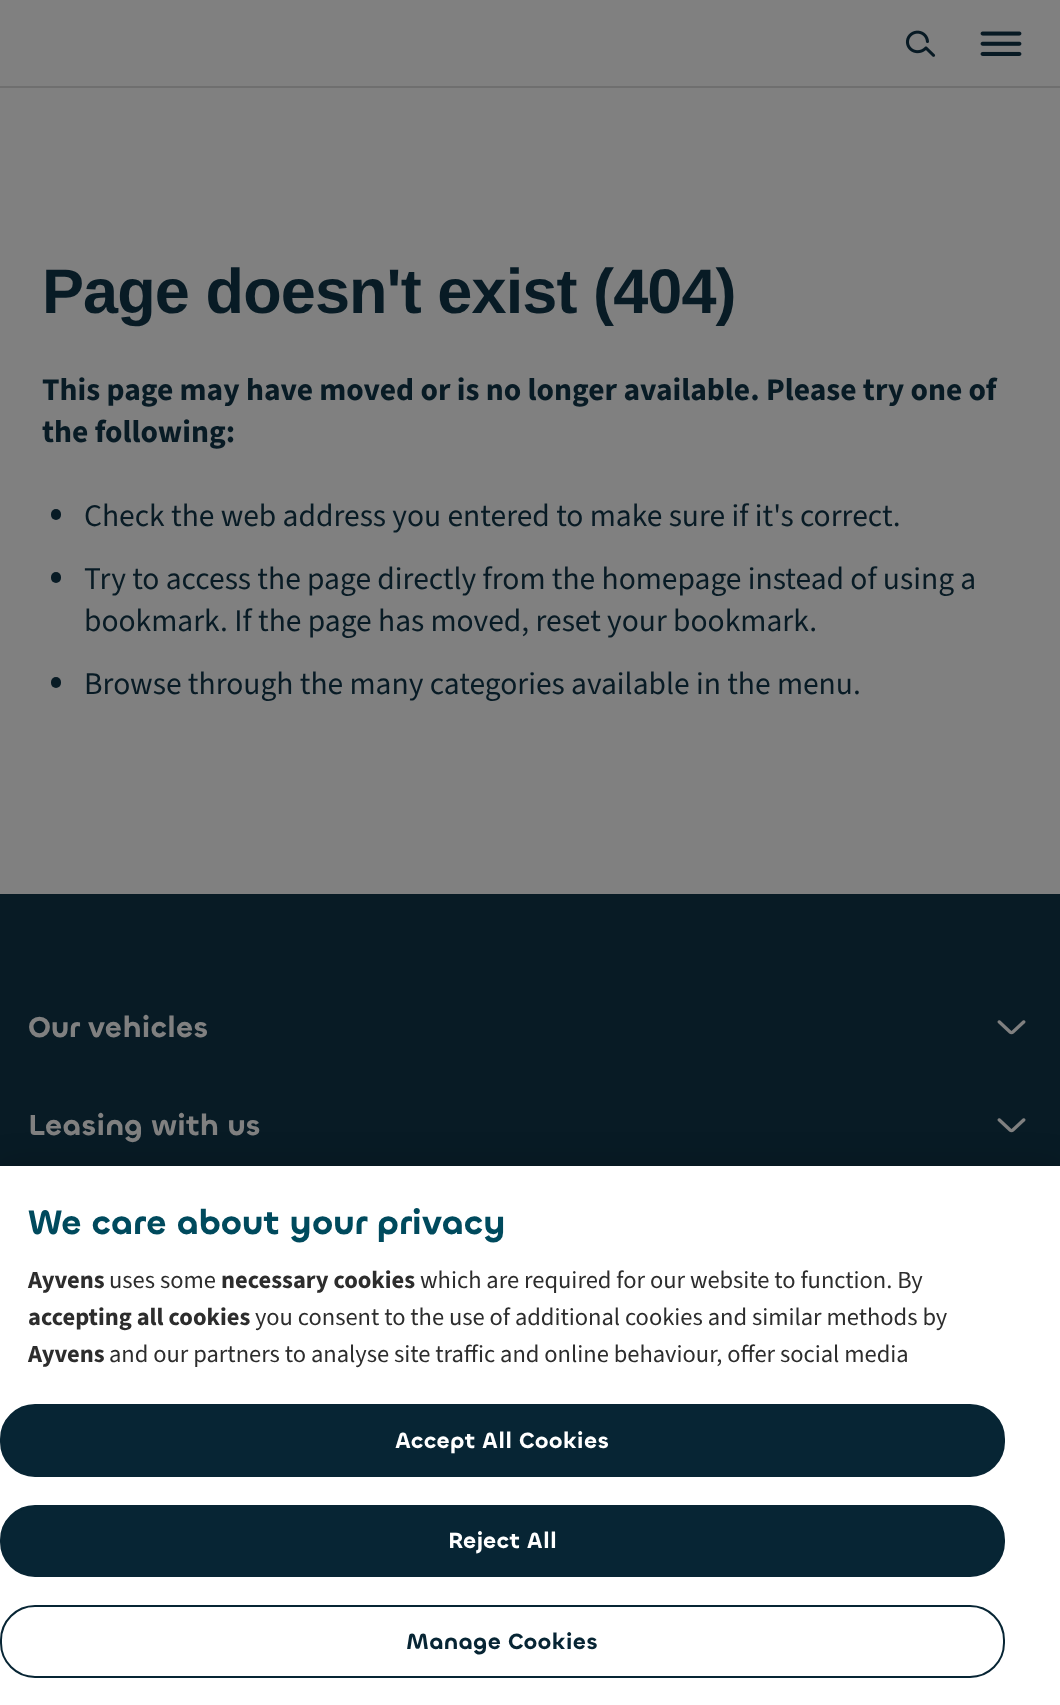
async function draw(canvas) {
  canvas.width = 1060
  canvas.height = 1705
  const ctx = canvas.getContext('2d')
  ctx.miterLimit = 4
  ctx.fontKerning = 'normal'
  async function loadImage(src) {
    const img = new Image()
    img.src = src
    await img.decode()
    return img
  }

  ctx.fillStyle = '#808080'
  ctx.fillRect(0, 0, 1060, 1705)
  ctx.fillStyle = '#6f6f6f'
  ctx.fillRect(0, 86, 1060, 2)
  ctx.drawImage(await loadImage('image0.png'), 905, 30, 31, 27)
  ctx.drawImage(await loadImage('image1.png'), 980, 31, 42, 25)
  ctx.letterSpacing = '-0.9px'
  ctx.font = 'bold 63px Liberation Sans'
  ctx.fillStyle = '#081b25'
  ctx.fillText('Page doesn\'t exist (404)', 42, 313)
  ctx.letterSpacing = '0px'
  ctx.font = 'bold 31.5px "Source Sans 3"'
  ctx.fillText('This page may have moved or is no longer available. Please try one of', 42, 400)
  ctx.fillText('the following:', 42, 442)
  ctx.beginPath()
  ctx.roundRect(51, 509, 10, 11, 5)
  ctx.fill()
  ctx.font = '31.5px "Source Sans 3"'
  ctx.fillText('Check the web address you entered to make sure if it\'s correct.', 84, 526)
  ctx.beginPath()
  ctx.roundRect(51, 572, 10, 11, 5)
  ctx.fill()
  ctx.fillText('Try to access the page directly from the homepage instead of using a', 84, 589)
  ctx.fillText('bookmark. If the page has moved, reset your bookmark.', 84, 631)
  ctx.beginPath()
  ctx.roundRect(51, 677, 10, 11, 5)
  ctx.fill()
  ctx.fillText('Browse through the many categories available in the menu.', 84, 694)
  ctx.fillRect(0, 894, 1060, 272)
  ctx.font = '600 29.75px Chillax'
  ctx.fillStyle = '#808080'
  ctx.fillText('Our vehicles', 28, 1037)
  ctx.drawImage(await loadImage('image2.png'), 997, 1020, 29, 15)
  ctx.fillText('Leasing with us', 28, 1135)
  ctx.drawImage(await loadImage('image2.png'), 997, 1118, 29, 15)
  ctx.fillStyle = '#00000033'
  ctx.filter = 'blur(16px)'
  ctx.beginPath()
  ctx.rect(0, 1166, 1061, 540)
  ctx.fill()
  ctx.filter = 'none'
  ctx.fillStyle = '#fff'
  ctx.fillRect(0, 1166, 1060, 539)
  ctx.font = '600 35px Chillax'
  ctx.fillStyle = '#004a5d'
  ctx.fillText('We care about your privacy', 28, 1234)
  ctx.font = 'bold 24.5px "Source Sans 3"'
  ctx.fillStyle = '#2d2d2d'
  ctx.fillText('Ayvens', 28, 1288)
  ctx.font = '24.5px "Source Sans 3"'
  ctx.fillText('uses some', 109, 1288)
  ctx.font = 'bold 24.5px "Source Sans 3"'
  ctx.fillText('necessary cookies', 221, 1288)
  ctx.font = '24.5px "Source Sans 3"'
  ctx.fillText('which are required for our website to function. By', 420, 1288)
  ctx.font = 'bold 24.5px "Source Sans 3"'
  ctx.fillText('accepting all cookies', 28, 1325)
  ctx.font = '24.5px "Source Sans 3"'
  ctx.fillText('you consent to the use of additional cookies and similar methods by', 255, 1325)
  ctx.font = 'bold 24.5px "Source Sans 3"'
  ctx.fillText('Ayvens', 28, 1362)
  ctx.font = '24.5px "Source Sans 3"'
  ctx.fillText('and our partners to analyse site traffic and online behaviour, offer social media', 109, 1362)
  ctx.fillStyle = '#072534'
  ctx.beginPath()
  ctx.roundRect(1, 1405, 1003, 71, 34)
  ctx.fill()
  ctx.strokeStyle = '#072534'
  ctx.lineWidth = 2
  ctx.stroke()
  ctx.letterSpacing = '0.25px'
  ctx.font = '600 22.75px Chillax'
  ctx.fillStyle = '#fff'
  ctx.fillText('Accept All Cookies', 395, 1448)
  ctx.fillStyle = '#072534'
  ctx.beginPath()
  ctx.roundRect(1, 1506, 1003, 70, 34)
  ctx.fill()
  ctx.stroke()
  ctx.fillStyle = '#fff'
  ctx.fillText('Reject All', 448, 1548)
  ctx.beginPath()
  ctx.roundRect(1, 1606, 1003, 71, 34)
  ctx.stroke()
  ctx.fillStyle = '#072534'
  ctx.fillText('Manage Cookies', 406, 1649)
}

draw(document.querySelector('canvas'))
